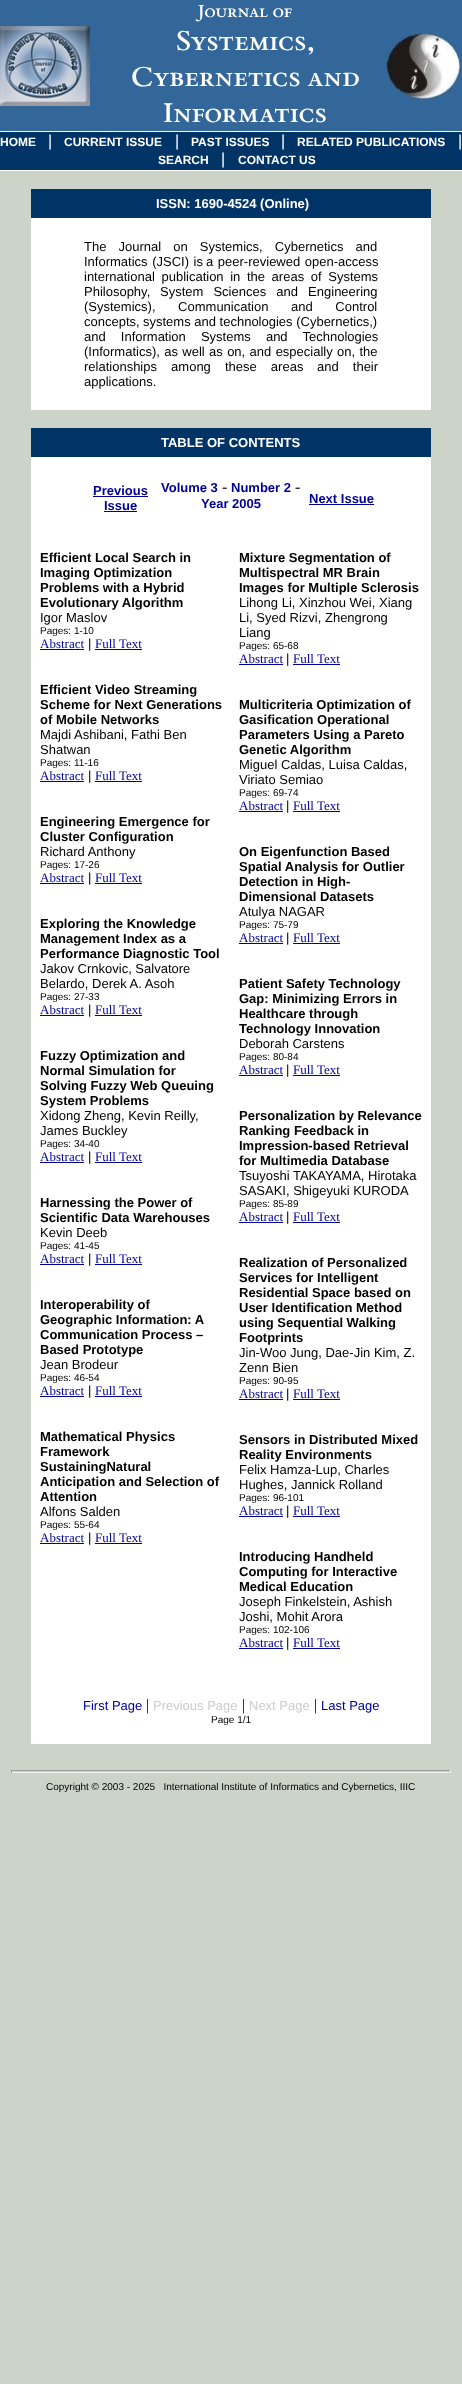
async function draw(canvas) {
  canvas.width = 462
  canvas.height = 2384
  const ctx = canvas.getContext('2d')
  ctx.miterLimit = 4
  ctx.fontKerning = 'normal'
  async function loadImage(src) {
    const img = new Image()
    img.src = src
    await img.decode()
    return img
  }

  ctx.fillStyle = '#ccd4ca'
  ctx.fillRect(0, 0, 462, 2384)
  ctx.fillStyle = '#369'
  ctx.fillRect(0, 0, 462, 131)
  ctx.drawImage(await loadImage('image0.png'), 0, 26, 90, 80)
  ctx.font = 'bold 18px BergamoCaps'
  ctx.fillStyle = '#fff'
  ctx.fillText('Journal of', 198, 17)
  ctx.font = 'bold 28px BergamoCaps'
  ctx.fillText('Systemics,', 175, 50)
  ctx.fillText('Cybernetics and', 131, 86)
  ctx.fillText('Informatics', 163, 122)
  ctx.drawImage(await loadImage('image1.png'), 385, 31, 77, 70)
  ctx.fillStyle = '#036'
  ctx.fillRect(0, 132, 462, 38)
  ctx.fillStyle = '#fff'
  ctx.fillRect(0, 131, 462, 1)
  ctx.font = 'bold 12px Liberation Sans'
  ctx.fillText('HOME', 0, 146)
  ctx.font = '16px Liberation Sans'
  ctx.fillText('|', 48, 146)
  ctx.font = 'bold 12px Liberation Sans'
  ctx.fillText('CURRENT ISSUE', 64, 146)
  ctx.font = '16px Liberation Sans'
  ctx.fillText('|', 175, 146)
  ctx.font = 'bold 12px Liberation Sans'
  ctx.fillText('PAST ISSUES', 191, 146)
  ctx.font = '16px Liberation Sans'
  ctx.fillText('|', 281, 146)
  ctx.font = 'bold 12px Liberation Sans'
  ctx.fillText('RELATED PUBLICATIONS', 297, 146)
  ctx.font = '16px Liberation Sans'
  ctx.fillText('|', 458, 146)
  ctx.font = 'bold 12px Liberation Sans'
  ctx.fillText('SEARCH', 158, 164)
  ctx.font = '16px Liberation Sans'
  ctx.fillText('|', 221, 164)
  ctx.font = 'bold 12px Liberation Sans'
  ctx.fillText('CONTACT US', 238, 164)
  ctx.fillRect(0, 170, 462, 1)
  ctx.fillStyle = '#036'
  ctx.fillRect(31, 189, 400, 29)
  ctx.font = 'bold 13px Liberation Sans'
  ctx.fillStyle = '#fff'
  ctx.fillText('ISSN: 1690-4524 (Online)', 156, 208)
  ctx.fillRect(31, 218, 400, 192)
  ctx.wordSpacing = '8.5px'
  ctx.font = '13px Liberation Sans'
  ctx.fillStyle = '#000'
  ctx.fillText('The Journal on Systemics, Cybernetics and', 84, 251)
  ctx.wordSpacing = '1px'
  ctx.fillText('Informatics (JSCI) is', 84, 266)
  ctx.fillText('a peer-reviewed open-access', 206, 266)
  ctx.wordSpacing = '3px'
  ctx.fillText('international publication in the areas of Systems', 84, 281)
  ctx.wordSpacing = '0px'
  ctx.fillText('Philosophy,', 84, 296)
  ctx.wordSpacing = '6.5px'
  ctx.fillText('System Sciences and Engineering', 160, 296)
  ctx.wordSpacing = '19px'
  ctx.fillText('(Systemics), Communication and Control', 84, 311)
  ctx.wordSpacing = '0px'
  ctx.fillText('concepts,', 84, 326)
  ctx.fillText('systems and technologies (Cybernetics,)', 143, 326)
  ctx.wordSpacing = '11.5px'
  ctx.fillText('and Information Systems and Technologies', 84, 341)
  ctx.wordSpacing = '0.75px'
  ctx.fillText('(Informatics), as well as on, and especially on, the', 84, 356)
  ctx.wordSpacing = '10.5px'
  ctx.fillText('relationships among these areas', 84, 371)
  ctx.fillText('and their', 317, 371)
  ctx.wordSpacing = '0px'
  ctx.fillText('applications.', 84, 386)
  ctx.fillStyle = '#036'
  ctx.fillRect(31, 428, 400, 29)
  ctx.font = 'bold 13px Liberation Sans'
  ctx.fillStyle = '#fff'
  ctx.fillText('TABLE OF CONTENTS', 161, 447)
  ctx.fillRect(31, 457, 400, 1287)
  ctx.fillStyle = '#009'
  ctx.fillText('Previous', 93, 495)
  ctx.fillRect(93, 496, 55, 1)
  ctx.fillText('Issue', 104, 510)
  ctx.fillRect(104, 511, 33, 1)
  ctx.fillText('Volume 3', 161, 492)
  ctx.font = '16px Liberation Serif'
  ctx.fillStyle = '#000'
  ctx.fillText('-', 222, 492)
  ctx.font = 'bold 13px Liberation Sans'
  ctx.fillStyle = '#009'
  ctx.fillText('Number 2', 231, 492)
  ctx.font = '16px Liberation Serif'
  ctx.fillStyle = '#000'
  ctx.fillText('-', 295, 492)
  ctx.font = 'bold 13px Liberation Sans'
  ctx.fillStyle = '#009'
  ctx.fillText('Year 2005', 201, 508)
  ctx.fillText('Next Issue', 309, 503)
  ctx.fillRect(309, 504, 65, 1)
  ctx.fillStyle = '#000'
  ctx.fillText('Efficient Local Search in', 40, 562)
  ctx.fillText('Imaging Optimization', 40, 577)
  ctx.fillText('Problems with a Hybrid', 40, 592)
  ctx.fillText('Evolutionary Algorithm', 40, 607)
  ctx.font = '13px Liberation Sans'
  ctx.fillText('Igor Maslov', 40, 622)
  ctx.font = '10px Liberation Sans'
  ctx.fillText('Pages: 1-10', 40, 634)
  ctx.font = '13px Liberation Serif'
  ctx.fillStyle = '#009'
  ctx.fillText('Abstract', 40, 648)
  ctx.fillRect(40, 649, 44, 1)
  ctx.font = '13px Liberation Sans'
  ctx.fillStyle = '#000'
  ctx.fillText('|', 88, 648)
  ctx.font = '13px Liberation Serif'
  ctx.fillStyle = '#009'
  ctx.fillText('Full Text', 95, 648)
  ctx.fillRect(95, 649, 47, 1)
  ctx.font = 'bold 13px Liberation Sans'
  ctx.fillStyle = '#000'
  ctx.fillText('Efficient Video Streaming', 40, 694)
  ctx.fillText('Scheme for Next Generations', 40, 709)
  ctx.fillText('of Mobile Networks', 40, 724)
  ctx.font = '13px Liberation Sans'
  ctx.fillText('Majdi Ashibani, Fathi Ben', 40, 739)
  ctx.fillText('Shatwan', 40, 754)
  ctx.font = '10px Liberation Sans'
  ctx.fillText('Pages: 11-16', 40, 766)
  ctx.font = '13px Liberation Serif'
  ctx.fillStyle = '#009'
  ctx.fillText('Abstract', 40, 780)
  ctx.fillRect(40, 781, 44, 1)
  ctx.font = '13px Liberation Sans'
  ctx.fillStyle = '#000'
  ctx.fillText('|', 88, 780)
  ctx.font = '13px Liberation Serif'
  ctx.fillStyle = '#009'
  ctx.fillText('Full Text', 95, 780)
  ctx.fillRect(95, 781, 47, 1)
  ctx.font = 'bold 13px Liberation Sans'
  ctx.fillStyle = '#000'
  ctx.fillText('Engineering Emergence for', 40, 826)
  ctx.fillText('Cluster Configuration', 40, 841)
  ctx.font = '13px Liberation Sans'
  ctx.fillText('Richard Anthony', 40, 856)
  ctx.font = '10px Liberation Sans'
  ctx.fillText('Pages: 17-26', 40, 868)
  ctx.font = '13px Liberation Serif'
  ctx.fillStyle = '#009'
  ctx.fillText('Abstract', 40, 882)
  ctx.fillRect(40, 883, 44, 1)
  ctx.font = '13px Liberation Sans'
  ctx.fillStyle = '#000'
  ctx.fillText('|', 88, 882)
  ctx.font = '13px Liberation Serif'
  ctx.fillStyle = '#009'
  ctx.fillText('Full Text', 95, 882)
  ctx.fillRect(95, 883, 47, 1)
  ctx.font = 'bold 13px Liberation Sans'
  ctx.fillStyle = '#000'
  ctx.fillText('Exploring the Knowledge', 40, 928)
  ctx.fillText('Management Index as a', 40, 943)
  ctx.fillText('Performance Diagnostic Tool', 40, 958)
  ctx.font = '13px Liberation Sans'
  ctx.fillText('Jakov Crnkovic, Salvatore', 40, 973)
  ctx.fillText('Belardo, Derek A. Asoh', 40, 988)
  ctx.font = '10px Liberation Sans'
  ctx.fillText('Pages: 27-33', 40, 1000)
  ctx.font = '13px Liberation Serif'
  ctx.fillStyle = '#009'
  ctx.fillText('Abstract', 40, 1014)
  ctx.fillRect(40, 1015, 44, 1)
  ctx.font = '13px Liberation Sans'
  ctx.fillStyle = '#000'
  ctx.fillText('|', 88, 1014)
  ctx.font = '13px Liberation Serif'
  ctx.fillStyle = '#009'
  ctx.fillText('Full Text', 95, 1014)
  ctx.fillRect(95, 1015, 47, 1)
  ctx.font = 'bold 13px Liberation Sans'
  ctx.fillStyle = '#000'
  ctx.fillText('Fuzzy Optimization and', 40, 1060)
  ctx.fillText('Normal Simulation for', 40, 1075)
  ctx.fillText('Solving Fuzzy Web Queuing', 40, 1090)
  ctx.fillText('System Problems', 40, 1105)
  ctx.font = '13px Liberation Sans'
  ctx.fillText('Xidong Zheng, Kevin Reilly,', 40, 1120)
  ctx.fillText('James Buckley', 40, 1135)
  ctx.font = '10px Liberation Sans'
  ctx.fillText('Pages: 34-40', 40, 1147)
  ctx.font = '13px Liberation Serif'
  ctx.fillStyle = '#009'
  ctx.fillText('Abstract', 40, 1161)
  ctx.fillRect(40, 1162, 44, 1)
  ctx.font = '13px Liberation Sans'
  ctx.fillStyle = '#000'
  ctx.fillText('|', 88, 1161)
  ctx.font = '13px Liberation Serif'
  ctx.fillStyle = '#009'
  ctx.fillText('Full Text', 95, 1161)
  ctx.fillRect(95, 1162, 47, 1)
  ctx.font = 'bold 13px Liberation Sans'
  ctx.fillStyle = '#000'
  ctx.fillText('Harnessing the Power of', 40, 1207)
  ctx.fillText('Scientific Data Warehouses', 40, 1222)
  ctx.font = '13px Liberation Sans'
  ctx.fillText('Kevin Deeb', 40, 1237)
  ctx.font = '10px Liberation Sans'
  ctx.fillText('Pages: 41-45', 40, 1249)
  ctx.font = '13px Liberation Serif'
  ctx.fillStyle = '#009'
  ctx.fillText('Abstract', 40, 1263)
  ctx.fillRect(40, 1264, 44, 1)
  ctx.font = '13px Liberation Sans'
  ctx.fillStyle = '#000'
  ctx.fillText('|', 88, 1263)
  ctx.font = '13px Liberation Serif'
  ctx.fillStyle = '#009'
  ctx.fillText('Full Text', 95, 1263)
  ctx.fillRect(95, 1264, 47, 1)
  ctx.font = 'bold 13px Liberation Sans'
  ctx.fillStyle = '#000'
  ctx.fillText('Interoperability of', 40, 1309)
  ctx.fillText('Geographic Information: A', 40, 1324)
  ctx.fillText('Communication Process –', 40, 1339)
  ctx.fillText('Based Prototype', 40, 1354)
  ctx.font = '13px Liberation Sans'
  ctx.fillText('Jean Brodeur', 40, 1369)
  ctx.font = '10px Liberation Sans'
  ctx.fillText('Pages: 46-54', 40, 1381)
  ctx.font = '13px Liberation Serif'
  ctx.fillStyle = '#009'
  ctx.fillText('Abstract', 40, 1395)
  ctx.fillRect(40, 1396, 44, 1)
  ctx.font = '13px Liberation Sans'
  ctx.fillStyle = '#000'
  ctx.fillText('|', 88, 1395)
  ctx.font = '13px Liberation Serif'
  ctx.fillStyle = '#009'
  ctx.fillText('Full Text', 95, 1395)
  ctx.fillRect(95, 1396, 47, 1)
  ctx.font = 'bold 13px Liberation Sans'
  ctx.fillStyle = '#000'
  ctx.fillText('Mathematical Physics', 40, 1441)
  ctx.fillText('Framework', 40, 1456)
  ctx.fillText('SustainingNatural', 40, 1471)
  ctx.fillText('Anticipation and Selection of', 40, 1486)
  ctx.fillText('Attention', 40, 1501)
  ctx.font = '13px Liberation Sans'
  ctx.fillText('Alfons Salden', 40, 1516)
  ctx.font = '10px Liberation Sans'
  ctx.fillText('Pages: 55-64', 40, 1528)
  ctx.font = '13px Liberation Serif'
  ctx.fillStyle = '#009'
  ctx.fillText('Abstract', 40, 1542)
  ctx.fillRect(40, 1543, 44, 1)
  ctx.font = '13px Liberation Sans'
  ctx.fillStyle = '#000'
  ctx.fillText('|', 88, 1542)
  ctx.font = '13px Liberation Serif'
  ctx.fillStyle = '#009'
  ctx.fillText('Full Text', 95, 1542)
  ctx.fillRect(95, 1543, 47, 1)
  ctx.font = 'bold 13px Liberation Sans'
  ctx.fillStyle = '#000'
  ctx.fillText('Mixture Segmentation of', 239, 562)
  ctx.fillText('Multispectral MR Brain', 239, 577)
  ctx.fillText('Images for Multiple Sclerosis', 239, 592)
  ctx.font = '13px Liberation Sans'
  ctx.fillText('Lihong Li, Xinzhou Wei, Xiang', 239, 607)
  ctx.fillText('Li, Syed Rizvi, Zhengrong', 239, 622)
  ctx.fillText('Liang', 239, 637)
  ctx.font = '10px Liberation Sans'
  ctx.fillText('Pages: 65-68', 239, 649)
  ctx.font = '13px Liberation Serif'
  ctx.fillStyle = '#009'
  ctx.fillText('Abstract', 239, 663)
  ctx.fillRect(239, 664, 44, 1)
  ctx.font = '13px Liberation Sans'
  ctx.fillStyle = '#000'
  ctx.fillText('|', 286, 663)
  ctx.font = '13px Liberation Serif'
  ctx.fillStyle = '#009'
  ctx.fillText('Full Text', 293, 663)
  ctx.fillRect(293, 664, 47, 1)
  ctx.font = 'bold 13px Liberation Sans'
  ctx.fillStyle = '#000'
  ctx.fillText('Multicriteria Optimization of', 239, 709)
  ctx.fillText('Gasification Operational', 239, 724)
  ctx.fillText('Parameters Using a Pareto', 239, 739)
  ctx.fillText('Genetic Algorithm', 239, 754)
  ctx.font = '13px Liberation Sans'
  ctx.fillText('Miguel Caldas, Luisa Caldas,', 239, 769)
  ctx.fillText('Viriato Semiao', 239, 784)
  ctx.font = '10px Liberation Sans'
  ctx.fillText('Pages: 69-74', 239, 796)
  ctx.font = '13px Liberation Serif'
  ctx.fillStyle = '#009'
  ctx.fillText('Abstract', 239, 810)
  ctx.fillRect(239, 811, 44, 1)
  ctx.font = '13px Liberation Sans'
  ctx.fillStyle = '#000'
  ctx.fillText('|', 286, 810)
  ctx.font = '13px Liberation Serif'
  ctx.fillStyle = '#009'
  ctx.fillText('Full Text', 293, 810)
  ctx.fillRect(293, 811, 47, 1)
  ctx.font = 'bold 13px Liberation Sans'
  ctx.fillStyle = '#000'
  ctx.fillText('On Eigenfunction Based', 239, 856)
  ctx.fillText('Spatial Analysis for Outlier', 239, 871)
  ctx.fillText('Detection in High-', 239, 886)
  ctx.fillText('Dimensional Datasets', 239, 901)
  ctx.font = '13px Liberation Sans'
  ctx.fillText('Atulya NAGAR', 239, 916)
  ctx.font = '10px Liberation Sans'
  ctx.fillText('Pages: 75-79', 239, 928)
  ctx.font = '13px Liberation Serif'
  ctx.fillStyle = '#009'
  ctx.fillText('Abstract', 239, 942)
  ctx.fillRect(239, 943, 44, 1)
  ctx.font = '13px Liberation Sans'
  ctx.fillStyle = '#000'
  ctx.fillText('|', 286, 942)
  ctx.font = '13px Liberation Serif'
  ctx.fillStyle = '#009'
  ctx.fillText('Full Text', 293, 942)
  ctx.fillRect(293, 943, 47, 1)
  ctx.font = 'bold 13px Liberation Sans'
  ctx.fillStyle = '#000'
  ctx.fillText('Patient Safety Technology', 239, 988)
  ctx.fillText('Gap: Minimizing Errors in', 239, 1003)
  ctx.fillText('Healthcare through', 239, 1018)
  ctx.fillText('Technology Innovation', 239, 1033)
  ctx.font = '13px Liberation Sans'
  ctx.fillText('Deborah Carstens', 239, 1048)
  ctx.font = '10px Liberation Sans'
  ctx.fillText('Pages: 80-84', 239, 1060)
  ctx.font = '13px Liberation Serif'
  ctx.fillStyle = '#009'
  ctx.fillText('Abstract', 239, 1074)
  ctx.fillRect(239, 1075, 44, 1)
  ctx.font = '13px Liberation Sans'
  ctx.fillStyle = '#000'
  ctx.fillText('|', 286, 1074)
  ctx.font = '13px Liberation Serif'
  ctx.fillStyle = '#009'
  ctx.fillText('Full Text', 293, 1074)
  ctx.fillRect(293, 1075, 47, 1)
  ctx.font = 'bold 13px Liberation Sans'
  ctx.fillStyle = '#000'
  ctx.fillText('Personalization by Relevance', 239, 1120)
  ctx.fillText('Ranking Feedback in', 239, 1135)
  ctx.fillText('Impression-based Retrieval', 239, 1150)
  ctx.fillText('for Multimedia Database', 239, 1165)
  ctx.font = '13px Liberation Sans'
  ctx.fillText('Tsuyoshi TAKAYAMA, Hirotaka', 239, 1180)
  ctx.fillText('SASAKI, Shigeyuki KURODA', 239, 1195)
  ctx.font = '10px Liberation Sans'
  ctx.fillText('Pages: 85-89', 239, 1207)
  ctx.font = '13px Liberation Serif'
  ctx.fillStyle = '#009'
  ctx.fillText('Abstract', 239, 1221)
  ctx.fillRect(239, 1222, 44, 1)
  ctx.font = '13px Liberation Sans'
  ctx.fillStyle = '#000'
  ctx.fillText('|', 286, 1221)
  ctx.font = '13px Liberation Serif'
  ctx.fillStyle = '#009'
  ctx.fillText('Full Text', 293, 1221)
  ctx.fillRect(293, 1222, 47, 1)
  ctx.font = 'bold 13px Liberation Sans'
  ctx.fillStyle = '#000'
  ctx.fillText('Realization of Personalized', 239, 1267)
  ctx.fillText('Services for Intelligent', 239, 1282)
  ctx.fillText('Residential Space based on', 239, 1297)
  ctx.fillText('User Identification Method', 239, 1312)
  ctx.fillText('using Sequential Walking', 239, 1327)
  ctx.fillText('Footprints', 239, 1342)
  ctx.font = '13px Liberation Sans'
  ctx.fillText('Jin-Woo Jung, Dae-Jin Kim, Z.', 239, 1357)
  ctx.fillText('Zenn Bien', 239, 1372)
  ctx.font = '10px Liberation Sans'
  ctx.fillText('Pages: 90-95', 239, 1384)
  ctx.font = '13px Liberation Serif'
  ctx.fillStyle = '#009'
  ctx.fillText('Abstract', 239, 1398)
  ctx.fillRect(239, 1399, 44, 1)
  ctx.font = '13px Liberation Sans'
  ctx.fillStyle = '#000'
  ctx.fillText('|', 286, 1398)
  ctx.font = '13px Liberation Serif'
  ctx.fillStyle = '#009'
  ctx.fillText('Full Text', 293, 1398)
  ctx.fillRect(293, 1399, 47, 1)
  ctx.font = 'bold 13px Liberation Sans'
  ctx.fillStyle = '#000'
  ctx.fillText('Sensors in Distributed Mixed', 239, 1444)
  ctx.fillText('Reality Environments', 239, 1459)
  ctx.font = '13px Liberation Sans'
  ctx.fillText('Felix Hamza-Lup, Charles', 239, 1474)
  ctx.fillText('Hughes, Jannick Rolland', 239, 1489)
  ctx.font = '10px Liberation Sans'
  ctx.fillText('Pages: 96-101', 239, 1501)
  ctx.font = '13px Liberation Serif'
  ctx.fillStyle = '#009'
  ctx.fillText('Abstract', 239, 1515)
  ctx.fillRect(239, 1516, 44, 1)
  ctx.font = '13px Liberation Sans'
  ctx.fillStyle = '#000'
  ctx.fillText('|', 286, 1515)
  ctx.font = '13px Liberation Serif'
  ctx.fillStyle = '#009'
  ctx.fillText('Full Text', 293, 1515)
  ctx.fillRect(293, 1516, 47, 1)
  ctx.font = 'bold 13px Liberation Sans'
  ctx.fillStyle = '#000'
  ctx.fillText('Introducing Handheld', 239, 1561)
  ctx.fillText('Computing for Interactive', 239, 1576)
  ctx.fillText('Medical Education', 239, 1591)
  ctx.font = '13px Liberation Sans'
  ctx.fillText('Joseph Finkelstein, Ashish', 239, 1606)
  ctx.fillText('Joshi, Mohit Arora', 239, 1621)
  ctx.font = '10px Liberation Sans'
  ctx.fillText('Pages: 102-106', 239, 1633)
  ctx.font = '13px Liberation Serif'
  ctx.fillStyle = '#009'
  ctx.fillText('Abstract', 239, 1647)
  ctx.fillRect(239, 1648, 44, 1)
  ctx.font = '13px Liberation Sans'
  ctx.fillStyle = '#000'
  ctx.fillText('|', 286, 1647)
  ctx.font = '13px Liberation Serif'
  ctx.fillStyle = '#009'
  ctx.fillText('Full Text', 293, 1647)
  ctx.fillRect(293, 1648, 47, 1)
  ctx.font = '13px Liberation Sans'
  ctx.fillText('First Page', 83, 1710)
  ctx.font = '16px Liberation Serif'
  ctx.fillStyle = '#000'
  ctx.fillText('|', 146, 1710)
  ctx.font = '13px Liberation Sans'
  ctx.fillStyle = '#ccc'
  ctx.fillText('Previous Page', 153, 1710)
  ctx.font = '16px Liberation Serif'
  ctx.fillStyle = '#000'
  ctx.fillText('|', 242, 1710)
  ctx.font = '13px Liberation Sans'
  ctx.fillStyle = '#ccc'
  ctx.fillText('Next Page', 249, 1710)
  ctx.font = '16px Liberation Serif'
  ctx.fillStyle = '#000'
  ctx.fillText('|', 314, 1710)
  ctx.font = '13px Liberation Sans'
  ctx.fillStyle = '#009'
  ctx.fillText('Last Page', 321, 1710)
  ctx.font = '10px Liberation Sans'
  ctx.fillStyle = '#000'
  ctx.fillText('Page 1/1', 211, 1723)
  ctx.fillStyle = '#9f9f9f'
  ctx.fillRect(11, 1770, 440, 1)
  ctx.fillStyle = '#eee'
  ctx.fillRect(450, 1770, 1, 3)
  ctx.fillRect(11, 1772, 440, 1)
  ctx.fillStyle = '#9f9f9f'
  ctx.fillRect(11, 1770, 1, 3)
  ctx.fillStyle = '#000'
  ctx.fillText('Copyright © 2003 - 2025   International Institute of Informatics and Cybernetics, IIIC', 46, 1790)
}

draw(document.querySelector('canvas'))
